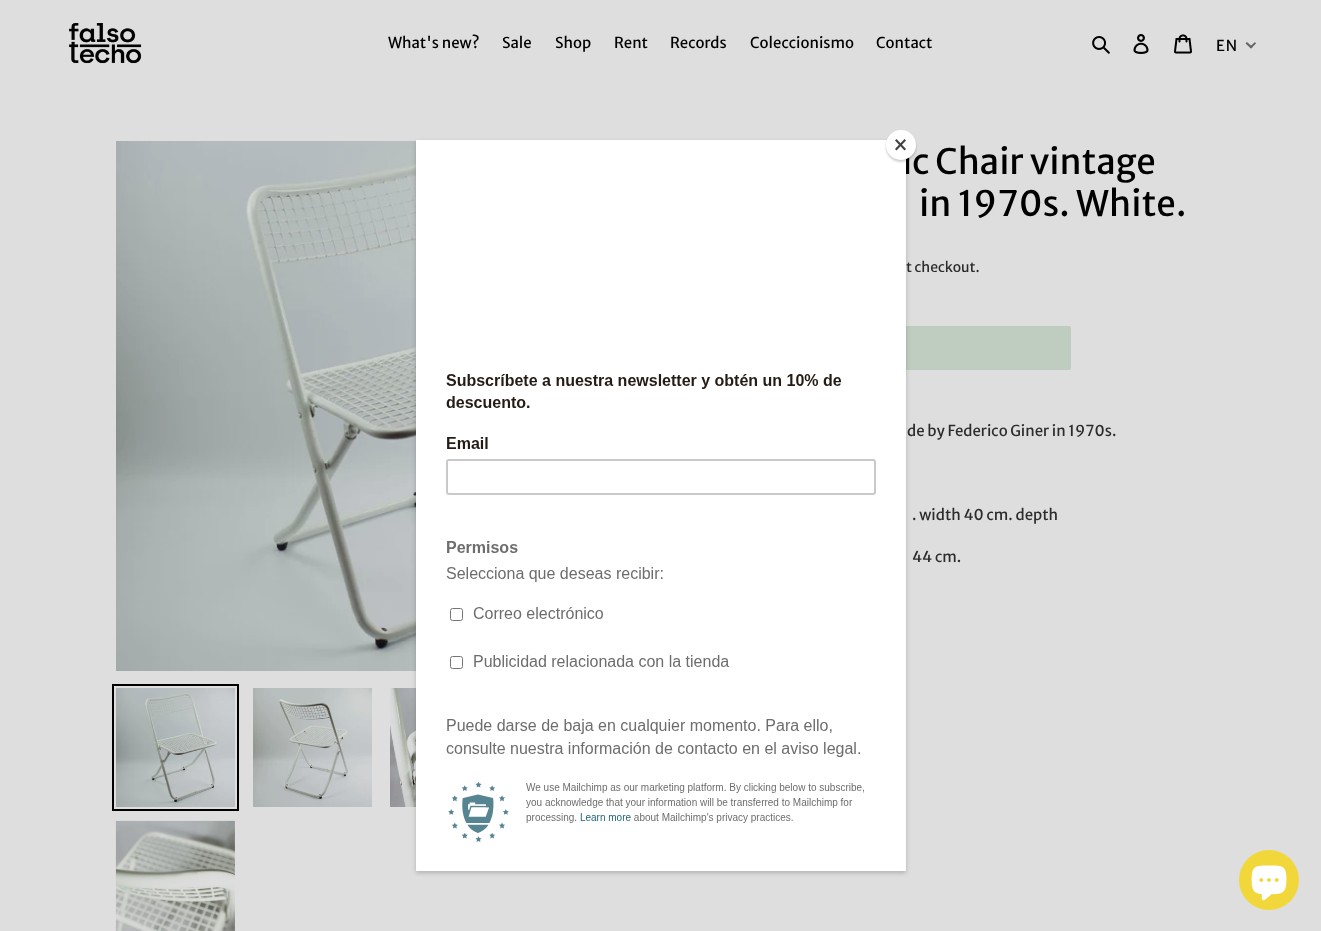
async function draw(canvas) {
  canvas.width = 1321
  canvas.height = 931
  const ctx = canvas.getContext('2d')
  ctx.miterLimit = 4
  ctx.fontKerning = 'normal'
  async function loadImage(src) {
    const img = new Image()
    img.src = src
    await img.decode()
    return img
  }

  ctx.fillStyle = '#dedede'
  ctx.fillRect(0, 0, 1321, 931)
  ctx.drawImage(await loadImage('image0.png'), 69, 23, 73, 41)
  ctx.font = '15px Merriweather Sans'
  ctx.fillStyle = '#000'
  ctx.fillText('What\'s new?', 388, 48)
  ctx.fillText('Sale', 502, 48)
  ctx.fillText('Shop', 555, 48)
  ctx.fillText('Rent', 614, 48)
  ctx.fillText('Records', 670, 48)
  ctx.fillText('Coleccionismo', 750, 48)
  ctx.fillText('Contact', 876, 48)
  ctx.drawImage(await loadImage('image1.png'), 1092, 36, 18, 18)
  ctx.drawImage(await loadImage('image2.png'), 1133, 34, 16, 20)
  ctx.drawImage(await loadImage('image3.png'), 1174, 34, 18, 20)
  ctx.letterSpacing = '1px'
  ctx.fillText('EN', 1216, 51)
  ctx.fillStyle = '#656565'
  ctx.beginPath()
  ctx.moveTo(1255, 42)
  ctx.lineTo(1256, 43.5)
  ctx.lineTo(1251, 48.5)
  ctx.lineTo(1249.5, 47)
  ctx.closePath()
  ctx.fill()
  ctx.beginPath()
  ctx.moveTo(1247, 42)
  ctx.lineTo(1252.5, 47)
  ctx.lineTo(1251, 48.5)
  ctx.lineTo(1245.5, 43.5)
  ctx.closePath()
  ctx.fill()
  ctx.drawImage(await loadImage('image5.png'), 116, 141, 300, 530)
  ctx.drawImage(await loadImage('image8.png'), 390, 688, 26, 119)
  ctx.fillStyle = '#bfcdc0'
  ctx.beginPath()
  ctx.roundRect(681, 326, 390, 44, 2)
  ctx.fill()
  ctx.fillStyle = '#00000033'
  ctx.filter = 'blur(2px)'
  ctx.beginPath()
  ctx.rect(416, 142, 490, 731)
  ctx.fill()
  ctx.filter = 'none'
  ctx.letterSpacing = '0px'
  ctx.font = '35px Merriweather Sans'
  ctx.fillStyle = '#000'
  ctx.fillText('ic Chair vintage', 902, 174)
  ctx.drawImage(await loadImage('image4.png'), 416, 140, 490, 731)
  ctx.fillStyle = '#00000033'
  ctx.filter = 'blur(1px)'
  ctx.beginPath()
  ctx.roundRect(886, 132, 30, 30, 15)
  ctx.fill()
  ctx.filter = 'none'
  ctx.fillStyle = '#fff'
  ctx.beginPath()
  ctx.arc(901, 145, 15, 0, 2 * Math.PI)
  ctx.fill()
  ctx.fillStyle = '#414141'
  ctx.beginPath()
  ctx.moveTo(904.5, 139)
  ctx.lineTo(906, 140.5)
  ctx.lineTo(896.5, 150.5)
  ctx.lineTo(895, 149)
  ctx.closePath()
  ctx.fill()
  ctx.beginPath()
  ctx.moveTo(895, 140.5)
  ctx.lineTo(896.5, 139)
  ctx.lineTo(906, 149)
  ctx.lineTo(904.5, 150.5)
  ctx.closePath()
  ctx.fill()
  ctx.strokeStyle = '#000'
  ctx.lineWidth = 2
  ctx.strokeRect(113, 685, 125, 125)
  ctx.drawImage(await loadImage('image6.png'), 116, 688, 119, 119)
  ctx.drawImage(await loadImage('image7.png'), 253, 688, 119, 119)
  ctx.drawImage(await loadImage('image9.png'), 115, 820, 120, 111)
  ctx.fillStyle = '#000'
  ctx.fillText('in 1970s. White.', 919, 216)
  ctx.font = '14px Merriweather Sans'
  ctx.fillStyle = '#2c2c2c'
  ctx.fillText('t checkout.', 906, 272)
  ctx.font = '15px Merriweather Sans'
  ctx.fillText('de by Federico Giner in 1970s.', 907, 436)
  ctx.fillText('. width 40 cm. depth', 912, 520)
  ctx.fillText('44 cm.', 912, 562)
  ctx.fillStyle = '#f2d73b'
  ctx.beginPath()
  ctx.arc(1269, 880, 30, 0, 2 * Math.PI)
  ctx.fill()
  ctx.drawImage(await loadImage('image10.png'), 1251, 865, 36, 36)
}

draw(document.querySelector('canvas'))
